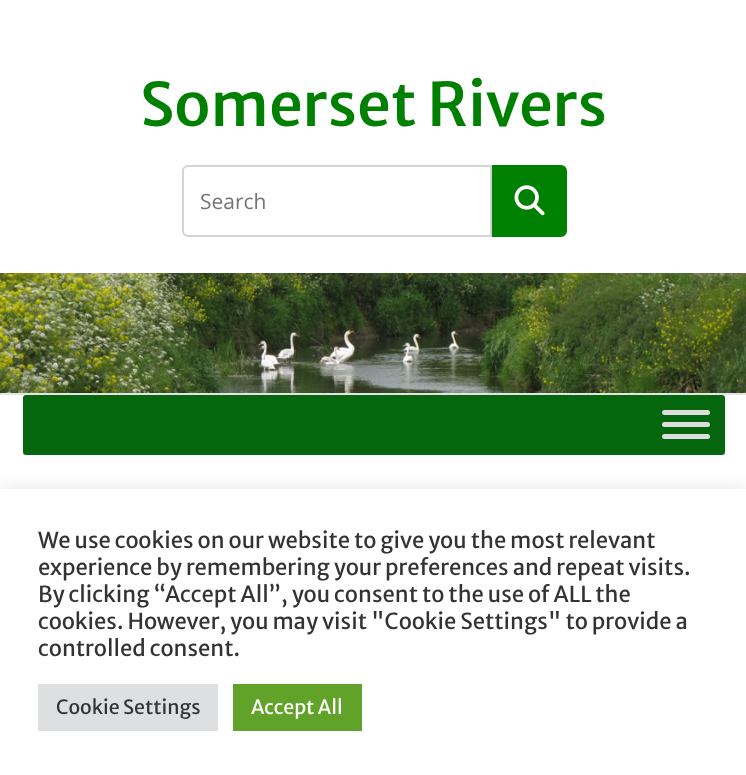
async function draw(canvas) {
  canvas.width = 746
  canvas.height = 775
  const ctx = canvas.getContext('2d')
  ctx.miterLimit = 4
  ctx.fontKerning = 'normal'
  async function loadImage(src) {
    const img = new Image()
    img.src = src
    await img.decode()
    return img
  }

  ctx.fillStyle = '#fff'
  ctx.fillRect(0, 0, 746, 775)
  ctx.font = '500 60px Merriweather Sans'
  ctx.fillStyle = '#008000'
  ctx.fillText('Somerset Rivers', 140, 126)
  ctx.beginPath()
  ctx.roundRect(183, 166, 308, 70, [5, 0, 0, 5])
  ctx.strokeStyle = '#d4d4d8'
  ctx.lineWidth = 2
  ctx.stroke()
  ctx.font = '21px Open Sans'
  ctx.fillStyle = '#757575'
  ctx.fillText('Search', 200, 209)
  ctx.fillStyle = '#008000'
  ctx.beginPath()
  ctx.roundRect(493, 166, 73, 70, [0, 5, 5, 0])
  ctx.fill()
  ctx.strokeStyle = '#008000'
  ctx.stroke()
  ctx.drawImage(await loadImage('image0.png'), 514, 185, 31, 31)
  ctx.drawImage(await loadImage('image1.png'), 0, 273, 746, 120)
  ctx.fillStyle = '#e4e4e7'
  ctx.fillRect(0, 393, 746, 2)
  ctx.fillStyle = '#04660d'
  ctx.beginPath()
  ctx.roundRect(23, 395, 702, 60, 3)
  ctx.fill()
  ctx.fillStyle = '#ddd'
  ctx.beginPath()
  ctx.roundRect(662, 410, 48, 5, 2.5)
  ctx.fill()
  ctx.beginPath()
  ctx.roundRect(662, 422, 48, 5, 2.5)
  ctx.fill()
  ctx.beginPath()
  ctx.roundRect(662, 434, 48, 5, 2.5)
  ctx.fill()
  ctx.fillStyle = '#acabab4d'
  ctx.filter = 'blur(7.5px)'
  ctx.beginPath()
  ctx.rect(0, 488, 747, 286)
  ctx.fill()
  ctx.filter = 'none'
  ctx.fillStyle = '#fff'
  ctx.fillRect(0, 489, 746, 286)
  ctx.font = '22px Merriweather Sans'
  ctx.fillStyle = '#333'
  ctx.fillText('We use cookies on our website to give you the most relevant', 38, 548)
  ctx.fillText('experience by remembering your preferences and repeat visits.', 38, 575)
  ctx.fillText('By clicking “Accept All”, you consent to the use of ALL the', 38, 602)
  ctx.fillText('cookies. However, you may visit "Cookie Settings" to provide a', 38, 629)
  ctx.fillText('controlled consent.', 38, 656)
  ctx.fillStyle = '#dedfe0'
  ctx.fillRect(38, 684, 180, 47)
  ctx.font = '19.5px Merriweather Sans'
  ctx.fillStyle = '#333'
  ctx.fillText('Cookie Settings', 56, 714)
  ctx.fillStyle = '#61a229'
  ctx.fillRect(233, 684, 129, 47)
  ctx.fillStyle = '#fff'
  ctx.fillText('Accept All', 251, 714)
}

draw(document.querySelector('canvas'))
